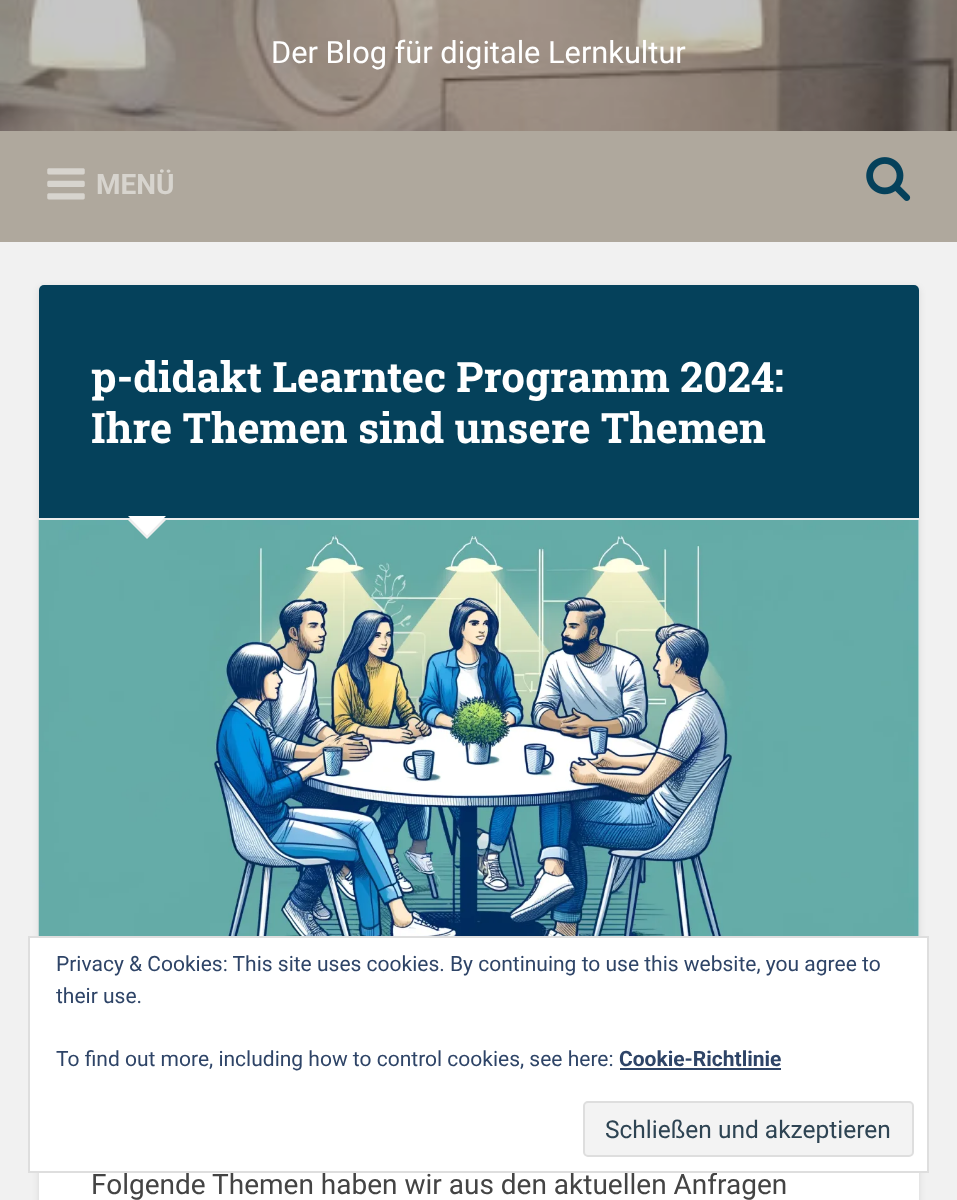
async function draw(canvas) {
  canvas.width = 957
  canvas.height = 1200
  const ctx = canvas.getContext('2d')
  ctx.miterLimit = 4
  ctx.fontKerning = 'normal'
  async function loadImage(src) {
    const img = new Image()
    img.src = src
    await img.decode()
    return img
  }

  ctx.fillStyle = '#f1f1f1'
  ctx.fillRect(0, 0, 957, 1200)
  ctx.drawImage(await loadImage('image0.png'), 0, 0, 957, 131)
  ctx.font = '30.75px Roboto'
  ctx.fillStyle = '#fff'
  ctx.fillText('Der Blog für digitale Lernkultur', 271, 63)
  ctx.fillStyle = '#afa89d'
  ctx.fillRect(0, 131, 957, 111)
  ctx.drawImage(await loadImage('image1.png'), 47, 168, 38, 32)
  ctx.font = 'bold 28px Roboto'
  ctx.fillStyle = '#d7d4ce'
  ctx.fillText('MENÜ', 96, 194)
  ctx.drawImage(await loadImage('image2.png'), 866, 157, 45, 44)
  ctx.fillStyle = '#0000001a'
  ctx.filter = 'blur(3.5px)'
  ctx.beginPath()
  ctx.roundRect(39, 287, 880, 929, 5)
  ctx.fill()
  ctx.filter = 'none'
  ctx.fillStyle = '#fff'
  ctx.beginPath()
  ctx.roundRect(39, 285, 880, 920, 5)
  ctx.fill()
  ctx.drawImage(await loadImage('image3.png'), 38, 519, 881, 417)
  ctx.fillStyle = '#05415b'
  ctx.beginPath()
  ctx.roundRect(39, 285, 880, 235, [5, 5, 0, 0])
  ctx.fill()
  ctx.fillStyle = '#eee'
  ctx.fillRect(39, 518, 880, 2)
  ctx.font = 'bold 42px Roboto Slab'
  ctx.fillStyle = '#fff'
  ctx.fillText('p-didakt Learntec Programm 2024:', 91, 392)
  ctx.fillText('Ihre Themen sind unsere Themen', 91, 443)
  ctx.fillStyle = '#eee'
  ctx.beginPath()
  ctx.moveTo(126, 518)
  ctx.lineTo(168, 518)
  ctx.lineTo(147, 539)
  ctx.closePath()
  ctx.fill()
  ctx.fillStyle = '#fff'
  ctx.beginPath()
  ctx.moveTo(128, 516)
  ctx.lineTo(166, 516)
  ctx.lineTo(147, 535.5)
  ctx.closePath()
  ctx.fill()
  ctx.font = '28px Roboto'
  ctx.fillStyle = '#444'
  ctx.fillText('Folgende Themen haben wir aus den aktuellen Anfragen', 91, 1194)
  ctx.fillStyle = '#fff'
  ctx.beginPath()
  ctx.rect(29, 937, 899, 235)
  ctx.fill()
  ctx.strokeStyle = '#dedede'
  ctx.lineWidth = 2
  ctx.stroke()
  ctx.font = '21px Roboto'
  ctx.fillStyle = '#2e4467'
  ctx.fillText('Privacy & Cookies: This site uses cookies. By continuing to use this website, you agree to', 56, 971)
  ctx.fillText('their use.', 56, 1003)
  ctx.fillText('To find out more, including how to control cookies, see here:', 56, 1066)
  ctx.font = 'bold 21px Roboto'
  ctx.fillText('Cookie-Richtlinie', 619, 1066)
  ctx.fillRect(620, 1068, 161, 2)
  ctx.fillStyle = '#f3f3f3'
  ctx.beginPath()
  ctx.roundRect(584, 1102, 329, 54, 4)
  ctx.fill()
  ctx.stroke()
  ctx.font = '24.5px Roboto'
  ctx.fillStyle = '#2e4453'
  ctx.fillText('Schließen und akzeptieren', 605, 1138)
}

draw(document.querySelector('canvas'))
